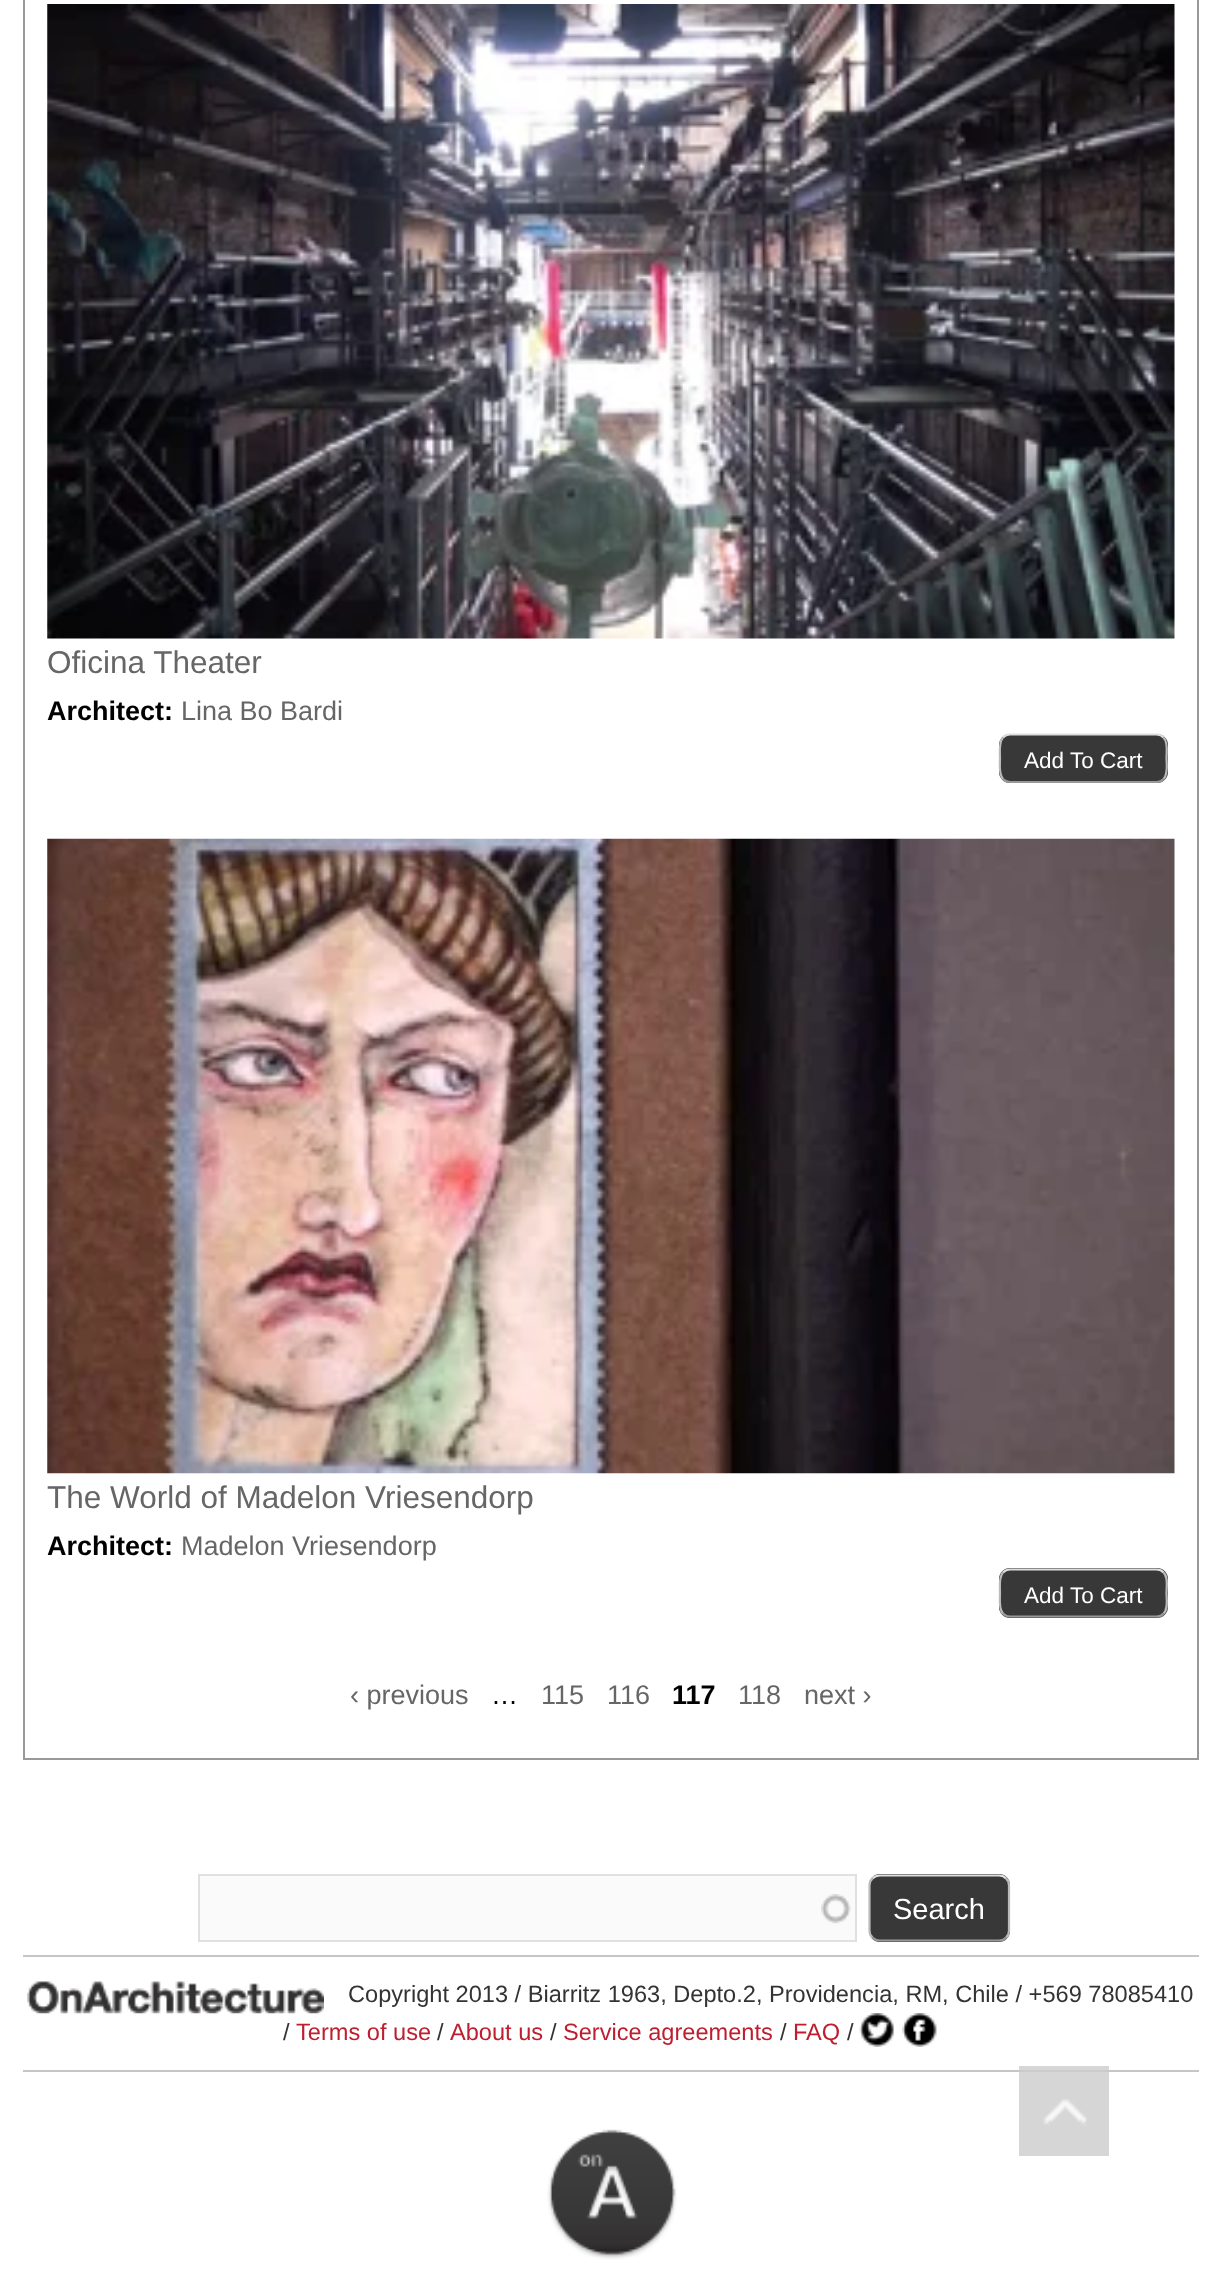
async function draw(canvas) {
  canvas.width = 1221
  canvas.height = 2283
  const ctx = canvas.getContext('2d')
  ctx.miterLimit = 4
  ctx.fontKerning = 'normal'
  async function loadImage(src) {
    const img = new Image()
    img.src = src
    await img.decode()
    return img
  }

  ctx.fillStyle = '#fff'
  ctx.fillRect(0, 0, 1221, 2283)
  ctx.strokeStyle = '#999'
  ctx.lineWidth = 2
  ctx.strokeRect(24, -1, 1174, 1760)
  ctx.drawImage(await loadImage('image0.png'), 47, 4, 1128, 635)
  ctx.font = '31.5px Liberation Sans'
  ctx.fillStyle = '#666'
  ctx.fillText('Oficina Theater', 47, 673)
  ctx.font = 'bold 27px Liberation Sans'
  ctx.fillStyle = '#000'
  ctx.fillText('Architect:', 47, 720)
  ctx.font = '27px Liberation Sans'
  ctx.fillStyle = '#666'
  ctx.fillText('Lina Bo Bardi', 181, 720)
  ctx.fillStyle = '#383838'
  ctx.beginPath()
  ctx.roundRect(999, 734, 169, 49, 11)
  ctx.fill()
  ctx.beginPath()
  ctx.moveTo(1003, 737.5)
  ctx.bezierCurveTo(1005, 735.5, 1007.5, 734.5, 1010, 734.5)
  ctx.lineTo(1156.5, 734.5)
  ctx.bezierCurveTo(1159, 734.5, 1162, 735.5, 1163.5, 737.5)
  ctx.strokeStyle = '#ddd'
  ctx.lineWidth = 2.2
  ctx.stroke()
  ctx.beginPath()
  ctx.moveTo(1163.5, 737.5)
  ctx.bezierCurveTo(1168.5, 742.5, 1166.5, 752.5, 1166.5, 758)
  ctx.bezierCurveTo(1166.5, 764, 1168.5, 774, 1163.5, 779)
  ctx.strokeStyle = '#bbb'
  ctx.stroke()
  ctx.beginPath()
  ctx.moveTo(1163.5, 779)
  ctx.bezierCurveTo(1162, 781, 1159, 782, 1156.5, 782)
  ctx.lineTo(1010, 782)
  ctx.bezierCurveTo(1007.5, 782, 1005, 781, 1003, 779)
  ctx.strokeStyle = '#999'
  ctx.stroke()
  ctx.beginPath()
  ctx.moveTo(1003, 779)
  ctx.bezierCurveTo(998.5, 774, 1000, 764, 1000, 758)
  ctx.bezierCurveTo(1000, 752.5, 998.5, 742.5, 1003, 737.5)
  ctx.strokeStyle = '#bbb'
  ctx.stroke()
  ctx.font = '22.5px Liberation Sans'
  ctx.fillStyle = '#fff'
  ctx.fillText('Add To Cart', 1024, 768)
  ctx.drawImage(await loadImage('image1.png'), 47, 838, 1128, 636)
  ctx.font = '31.5px Liberation Sans'
  ctx.fillStyle = '#666'
  ctx.fillText('The World of Madelon Vriesendorp', 47, 1508)
  ctx.font = 'bold 27px Liberation Sans'
  ctx.fillStyle = '#000'
  ctx.fillText('Architect:', 47, 1555)
  ctx.font = '27px Liberation Sans'
  ctx.fillStyle = '#666'
  ctx.fillText('Madelon Vriesendorp', 181, 1555)
  ctx.fillStyle = '#383838'
  ctx.beginPath()
  ctx.roundRect(999, 1568, 169, 50, 11)
  ctx.fill()
  ctx.beginPath()
  ctx.moveTo(1003, 1572.5)
  ctx.bezierCurveTo(1005, 1570.5, 1007.5, 1569.5, 1010, 1569.5)
  ctx.lineTo(1156.5, 1569.5)
  ctx.bezierCurveTo(1159, 1569.5, 1162, 1570.5, 1163.5, 1572.5)
  ctx.strokeStyle = '#ddd'
  ctx.stroke()
  ctx.beginPath()
  ctx.moveTo(1163.5, 1572.5)
  ctx.bezierCurveTo(1168.5, 1577, 1166.5, 1587, 1166.5, 1593)
  ctx.bezierCurveTo(1166.5, 1599, 1168.5, 1609, 1163.5, 1613.5)
  ctx.strokeStyle = '#bbb'
  ctx.stroke()
  ctx.beginPath()
  ctx.moveTo(1163.5, 1613.5)
  ctx.bezierCurveTo(1162, 1615.5, 1159, 1616.5, 1156.5, 1616.5)
  ctx.lineTo(1010, 1616.5)
  ctx.bezierCurveTo(1007.5, 1616.5, 1005, 1615.5, 1003, 1613.5)
  ctx.strokeStyle = '#999'
  ctx.stroke()
  ctx.beginPath()
  ctx.moveTo(1003, 1613.5)
  ctx.bezierCurveTo(998.5, 1609, 1000, 1599, 1000, 1593)
  ctx.bezierCurveTo(1000, 1587, 998.5, 1577, 1003, 1572.5)
  ctx.strokeStyle = '#bbb'
  ctx.stroke()
  ctx.font = '22.5px Liberation Sans'
  ctx.fillStyle = '#fff'
  ctx.fillText('Add To Cart', 1024, 1603)
  ctx.font = '27px Liberation Sans'
  ctx.fillStyle = '#666'
  ctx.fillText('‹ previous', 350, 1704)
  ctx.fillStyle = '#000'
  ctx.fillText('…', 491, 1704)
  ctx.fillStyle = '#666'
  ctx.fillText('115', 541, 1704)
  ctx.fillText('116', 607, 1704)
  ctx.font = 'bold 27px Liberation Sans'
  ctx.fillStyle = '#000'
  ctx.fillText('117', 672, 1704)
  ctx.font = '27px Liberation Sans'
  ctx.fillStyle = '#666'
  ctx.fillText('118', 738, 1704)
  ctx.fillText('next ›', 804, 1704)
  ctx.fillStyle = '#fbfafa'
  ctx.fillRect(200, 1876, 655, 64)
  ctx.drawImage(await loadImage('image2.png'), 821, 1894, 30, 30)
  ctx.strokeStyle = '#e0e0e0'
  ctx.lineWidth = 2
  ctx.strokeRect(199, 1875, 657, 66)
  ctx.fillStyle = '#383838'
  ctx.beginPath()
  ctx.roundRect(869, 1874, 141, 68, 11)
  ctx.fill()
  ctx.beginPath()
  ctx.moveTo(872.5, 1878.5)
  ctx.bezierCurveTo(874.5, 1876.5, 877, 1875.5, 880, 1875.5)
  ctx.lineTo(999, 1875.5)
  ctx.bezierCurveTo(1001.5, 1875.5, 1004.5, 1876.5, 1006, 1878.5)
  ctx.strokeStyle = '#ddd'
  ctx.lineWidth = 2.2
  ctx.stroke()
  ctx.beginPath()
  ctx.moveTo(1006, 1878.5)
  ctx.bezierCurveTo(1008, 1880, 1009, 1883, 1009, 1885.5)
  ctx.lineTo(1009, 1930.5)
  ctx.bezierCurveTo(1009, 1933, 1008, 1936, 1006, 1937.5)
  ctx.strokeStyle = '#bbb'
  ctx.stroke()
  ctx.beginPath()
  ctx.moveTo(1006, 1937.5)
  ctx.bezierCurveTo(1004.5, 1939.5, 1001.5, 1940.5, 999, 1940.5)
  ctx.lineTo(880, 1940.5)
  ctx.bezierCurveTo(877, 1940.5, 874.5, 1939.5, 872.5, 1937.5)
  ctx.strokeStyle = '#999'
  ctx.stroke()
  ctx.beginPath()
  ctx.moveTo(872.5, 1937.5)
  ctx.bezierCurveTo(870.5, 1936, 869.5, 1933, 869.5, 1930.5)
  ctx.lineTo(869.5, 1885.5)
  ctx.bezierCurveTo(869.5, 1883, 870.5, 1880, 872.5, 1878.5)
  ctx.strokeStyle = '#bbb'
  ctx.stroke()
  ctx.font = '29px Liberation Sans'
  ctx.fillStyle = '#fff'
  ctx.fillText('Search', 893, 1919)
  ctx.fillStyle = '#d6d6d6'
  ctx.fillRect(1019, 2066, 90, 90)
  ctx.fillStyle = '#c6c6c6'
  ctx.fillRect(23, 1955, 1176, 2)
  ctx.fillRect(23, 2070, 1176, 2)
  ctx.fillStyle = '#cbcbcb'
  ctx.fillRect(1019, 2070, 90, 2)
  ctx.drawImage(await loadImage('image3.png'), 27, 1981, 297, 33)
  ctx.font = '23.6px Liberation Sans'
  ctx.fillStyle = '#333'
  ctx.fillText('Copyright 2013 / Biarritz 1963, Depto.2, Providencia, RM, Chile / +569 78085410', 348, 2002)
  ctx.fillText('/', 283, 2040)
  ctx.fillStyle = '#be1e2d'
  ctx.fillText('Terms of use', 296, 2040)
  ctx.fillStyle = '#333'
  ctx.fillText('/', 437, 2040)
  ctx.fillStyle = '#be1e2d'
  ctx.fillText('About us', 450, 2040)
  ctx.fillStyle = '#333'
  ctx.fillText('/', 550, 2040)
  ctx.fillStyle = '#be1e2d'
  ctx.fillText('Service agreements', 563, 2040)
  ctx.fillStyle = '#333'
  ctx.fillText('/', 780, 2040)
  ctx.fillStyle = '#be1e2d'
  ctx.fillText('FAQ', 793, 2040)
  ctx.fillStyle = '#333'
  ctx.fillText('/', 847, 2040)
  ctx.drawImage(await loadImage('image4.png'), 859, 2013, 35, 34)
  ctx.drawImage(await loadImage('image5.png'), 902, 2013, 35, 34)
  ctx.drawImage(await loadImage('image6.png'), 547, 2129, 130, 131)
  ctx.drawImage(await loadImage('image7.png'), 1043, 2099, 44, 27)
}

draw(document.querySelector('canvas'))
